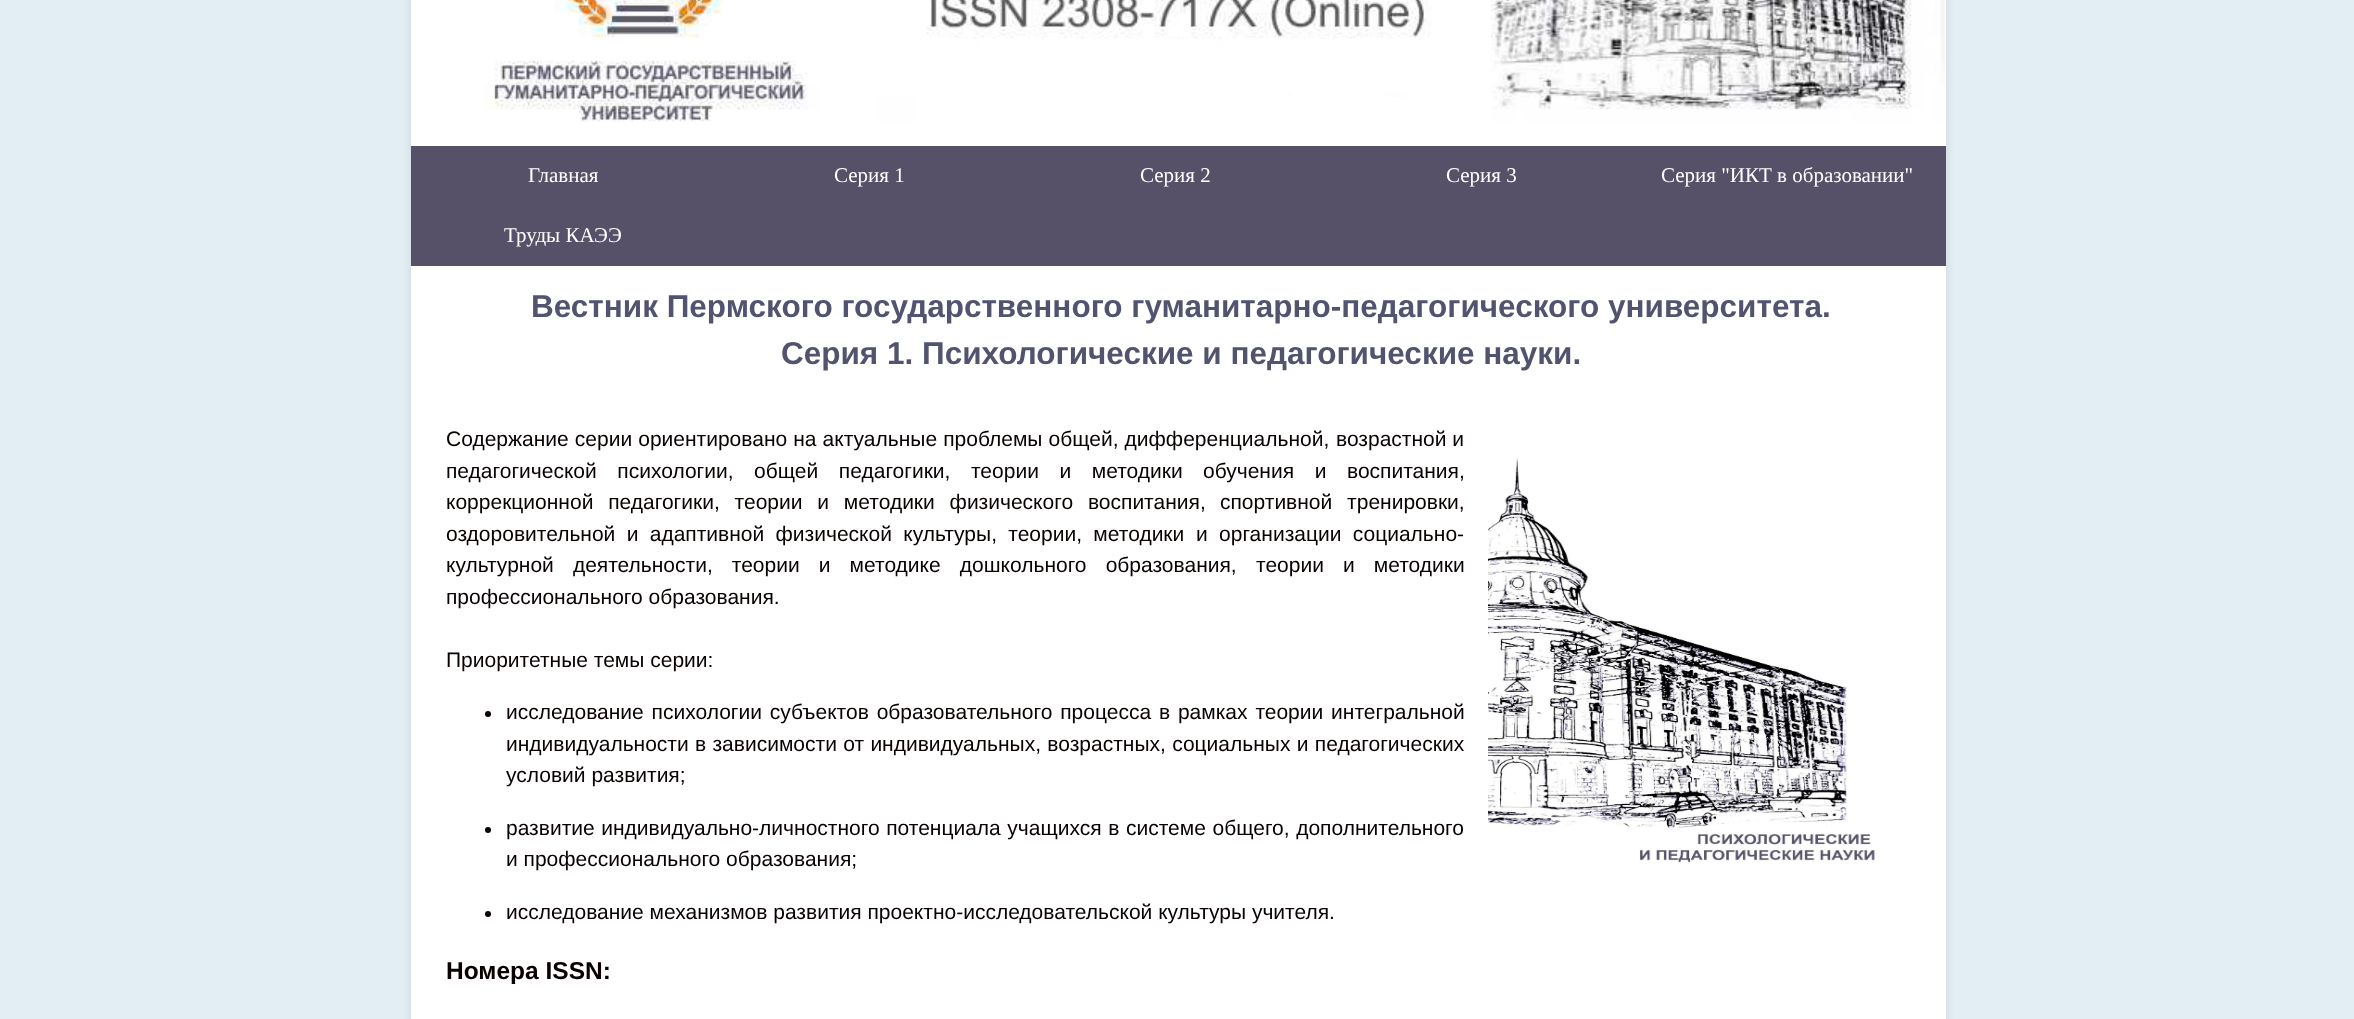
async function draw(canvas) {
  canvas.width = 2354
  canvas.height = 1019
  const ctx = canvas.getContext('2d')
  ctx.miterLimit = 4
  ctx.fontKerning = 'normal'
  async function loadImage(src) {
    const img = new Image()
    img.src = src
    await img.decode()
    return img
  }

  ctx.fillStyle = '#e3eef4'
  ctx.fillRect(0, 0, 2354, 1019)
  ctx.fillStyle = '#0000001a'
  ctx.filter = 'blur(4px)'
  ctx.beginPath()
  ctx.rect(411, -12, 1535, 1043)
  ctx.fill()
  ctx.filter = 'none'
  ctx.fillStyle = '#fff'
  ctx.fillRect(411, 0, 1535, 1019)
  ctx.drawImage(await loadImage('image0.png'), 483, 0, 1463, 122)
  ctx.fillStyle = '#565068'
  ctx.fillRect(411, 146, 1535, 120)
  ctx.font = '21px Liberation Serif'
  ctx.fillStyle = '#fff'
  ctx.fillText('Главная', 528, 182)
  ctx.fillText('Серия 1', 834, 182)
  ctx.fillText('Серия 2', 1140, 182)
  ctx.fillText('Серия 3', 1446, 182)
  ctx.fillText('Серия "ИКТ в образовании"', 1661, 182)
  ctx.fillText('Труды КАЭЭ', 504, 242)
  ctx.font = 'bold 31.5px Liberation Sans'
  ctx.fillStyle = '#51536f'
  ctx.fillText('Вестник Пермского государственного гуманитарно-педагогического университета.', 531, 317)
  ctx.fillText('Серия 1. Психологические и педагогические науки.', 781, 364)
  ctx.wordSpacing = '0.25px'
  ctx.font = '21px Liberation Sans'
  ctx.fillStyle = '#090000'
  ctx.fillText('Содержание серии ориентировано на актуальные проблемы общей, дифференциальной,', 446, 446)
  ctx.wordSpacing = '0px'
  ctx.fillText('возрастной и', 1336, 446)
  ctx.wordSpacing = '14.75px'
  ctx.fillText('педагогической психологии, общей педагогики, теории и методики', 446, 478)
  ctx.fillText('обучения и воспитания,', 1203, 478)
  ctx.drawImage(await loadImage('image1.png'), 1488, 458, 390, 405)
  ctx.wordSpacing = '9px'
  ctx.fillText('коррекционной педагогики, теории и методики физического воспитания,', 446, 509)
  ctx.fillText('спортивной тренировки,', 1220, 509)
  ctx.wordSpacing = '5.5px'
  ctx.fillText('оздоровительной и адаптивной физической культуры, теории, методики', 446, 541)
  ctx.fillText('и организации социально-', 1196, 541)
  ctx.wordSpacing = '13.25px'
  ctx.fillText('культурной деятельности, теории и методике дошкольного образования,', 446, 572)
  ctx.fillText('теории и методики', 1256, 572)
  ctx.wordSpacing = '0px'
  ctx.fillText('профессионального образования.', 446, 604)
  ctx.fillText('Приоритетные темы серии:', 446, 667)
  ctx.beginPath()
  ctx.arc(488, 714, 3, 0, 2 * Math.PI)
  ctx.fill()
  ctx.wordSpacing = '2px'
  ctx.fillText('исследование психологии субъектов образовательного процесса в рамках теории интегральной', 506, 719)
  ctx.wordSpacing = '0px'
  ctx.fillText('индивидуальности', 506, 751)
  ctx.wordSpacing = '0.5px'
  ctx.fillText('в зависимости от индивидуальных, возрастных, социальных и педагогических', 695, 751)
  ctx.wordSpacing = '0px'
  ctx.fillText('условий развития;', 506, 782)
  ctx.beginPath()
  ctx.arc(488, 830, 3, 0, 2 * Math.PI)
  ctx.fill()
  ctx.wordSpacing = '0.75px'
  ctx.fillText('развитие индивидуально-личностного потенциала учащихся в системе общего, дополнительного', 506, 835)
  ctx.wordSpacing = '0px'
  ctx.fillText('и профессионального образования;', 506, 866)
  ctx.beginPath()
  ctx.arc(488, 914, 3, 0, 2 * Math.PI)
  ctx.fill()
  ctx.fillText('исследование механизмов развития проектно-исследовательской культуры учителя.', 506, 919)
  ctx.font = 'bold 24.5px Liberation Sans'
  ctx.fillText('Номера ISSN:', 446, 979)
}

draw(document.querySelector('canvas'))
